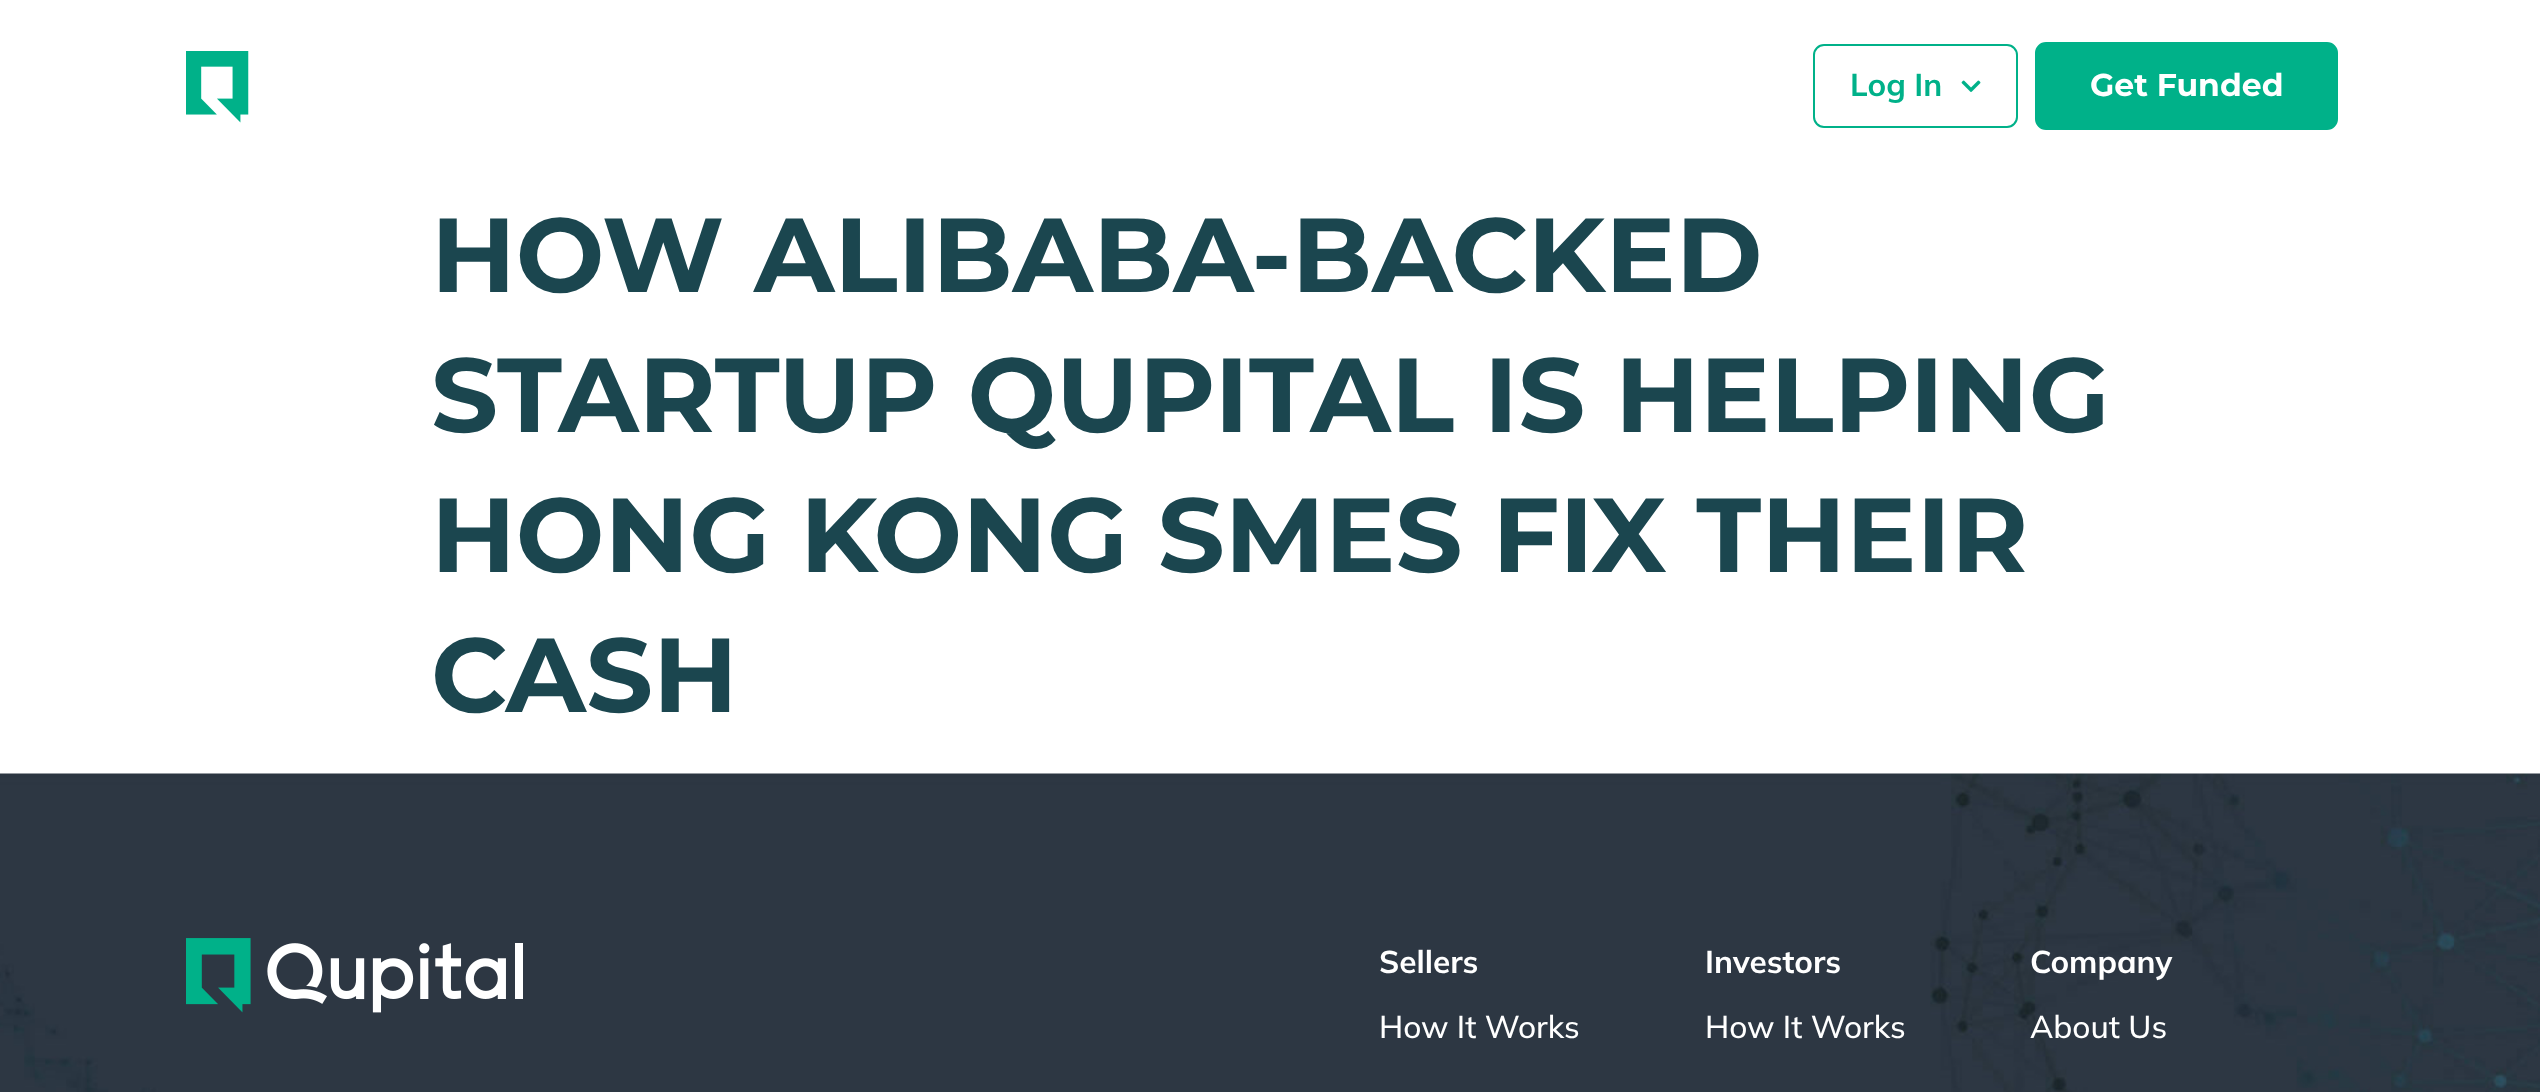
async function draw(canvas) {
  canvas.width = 2540
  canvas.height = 1092
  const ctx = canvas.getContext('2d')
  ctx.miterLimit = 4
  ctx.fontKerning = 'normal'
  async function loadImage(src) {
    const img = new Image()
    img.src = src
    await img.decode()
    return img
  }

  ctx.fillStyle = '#fff'
  ctx.fillRect(0, 0, 2540, 1092)
  ctx.drawImage(await loadImage('image0.png'), 186, 51, 63, 72)
  ctx.beginPath()
  ctx.roundRect(1814, 45, 203, 82, 10)
  ctx.strokeStyle = '#00b189'
  ctx.lineWidth = 2
  ctx.stroke()
  ctx.font = 'bold 31.5px Mulish'
  ctx.fillStyle = '#00b189'
  ctx.fillText('Log In', 1850, 96)
  ctx.drawImage(await loadImage('image1.png'), 1961, 80, 20, 12)
  ctx.beginPath()
  ctx.roundRect(2036, 43, 301, 86, 10)
  ctx.fill()
  ctx.stroke()
  ctx.font = 'bold 31.5px Montserrat'
  ctx.fillStyle = '#fff'
  ctx.fillText('Get Funded', 2090, 96)
  ctx.font = 'bold 105px Montserrat'
  ctx.fillStyle = '#1b464f'
  ctx.fillText('HOW ALIBABA-BACKED', 431, 292)
  ctx.fillText('STARTUP QUPITAL IS HELPING', 431, 432)
  ctx.fillText('HONG KONG SMES FIX THEIR', 431, 572)
  ctx.fillText('CASH', 431, 712)
  ctx.drawImage(await loadImage('image2.png'), 0, 773, 2540, 319)
  ctx.drawImage(await loadImage('image3.png'), 186, 938, 337, 75)
  ctx.font = 'bold 31.5px Mulish'
  ctx.fillStyle = '#fff'
  ctx.fillText('Sellers', 1379, 973)
  ctx.font = '500 31.5px Mulish'
  ctx.fillText('How It Works', 1379, 1038)
  ctx.font = 'bold 31.5px Mulish'
  ctx.fillText('Investors', 1705, 973)
  ctx.font = '500 31.5px Mulish'
  ctx.fillText('How It Works', 1705, 1038)
  ctx.font = 'bold 31.5px Mulish'
  ctx.fillText('Company', 2030, 973)
  ctx.font = '500 31.5px Mulish'
  ctx.fillText('About Us', 2030, 1038)
}

draw(document.querySelector('canvas'))
